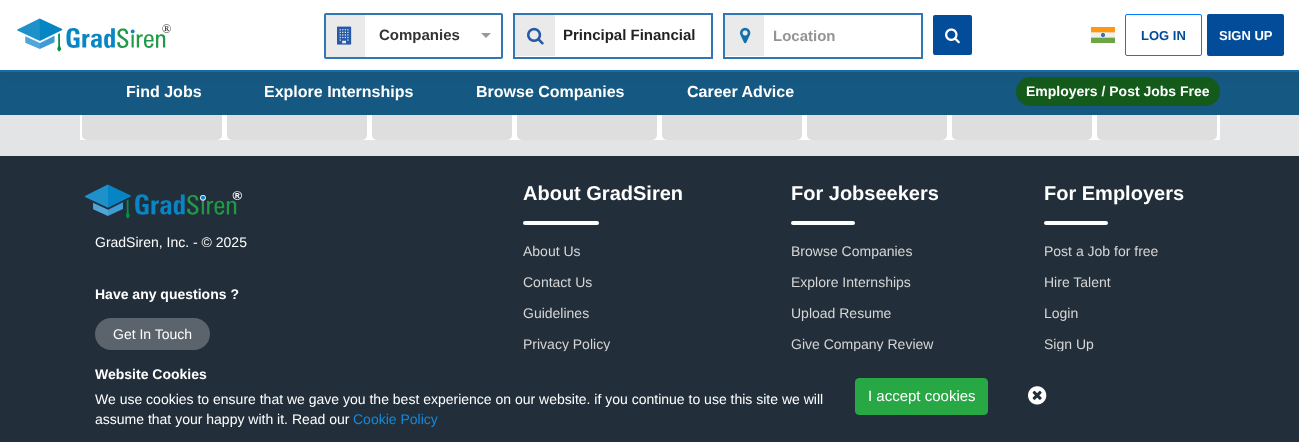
async function draw(canvas) {
  canvas.width = 1299
  canvas.height = 442
  const ctx = canvas.getContext('2d')
  ctx.miterLimit = 4
  ctx.fontKerning = 'normal'
  async function loadImage(src) {
    const img = new Image()
    img.src = src
    await img.decode()
    return img
  }

  ctx.fillStyle = '#e2e4e6'
  ctx.fillRect(0, 0, 1299, 442)
  ctx.fillStyle = '#fff'
  ctx.fillRect(80, 115, 1140, 25)
  ctx.fillStyle = '#dedede'
  ctx.beginPath()
  ctx.roundRect(82, 76, 140, 64, 5)
  ctx.fill()
  ctx.beginPath()
  ctx.roundRect(227, 76, 140, 64, 5)
  ctx.fill()
  ctx.beginPath()
  ctx.roundRect(372, 76, 140, 64, 5)
  ctx.fill()
  ctx.beginPath()
  ctx.roundRect(517, 76, 140, 64, 5)
  ctx.fill()
  ctx.beginPath()
  ctx.roundRect(662, 76, 140, 64, 5)
  ctx.fill()
  ctx.beginPath()
  ctx.roundRect(807, 76, 140, 64, 5)
  ctx.fill()
  ctx.beginPath()
  ctx.roundRect(952, 76, 140, 64, 5)
  ctx.fill()
  ctx.beginPath()
  ctx.roundRect(1097, 76, 120, 64, 5)
  ctx.fill()
  ctx.fillStyle = '#155882'
  ctx.fillRect(0, 72, 1299, 43)
  ctx.fillStyle = '#145a1b'
  ctx.beginPath()
  ctx.roundRect(1016, 77, 204, 29, 14.5)
  ctx.fill()
  ctx.fillStyle = '#633a3a2e'
  ctx.filter = 'blur(4px)'
  ctx.beginPath()
  ctx.rect(0, 1, 1299, 72)
  ctx.fill()
  ctx.filter = 'none'
  ctx.fillStyle = '#fff'
  ctx.fillRect(0, 0, 1299, 70)
  ctx.fillStyle = '#1070ac'
  ctx.fillRect(0, 70, 1299, 2)
  ctx.drawImage(await loadImage('image0.png'), 17, 18, 154, 34)
  ctx.beginPath()
  ctx.roundRect(325, 14, 177, 44, 1)
  ctx.strokeStyle = '#3376b5'
  ctx.lineWidth = 2
  ctx.stroke()
  ctx.fillStyle = '#eaeaea'
  ctx.fillRect(326, 15, 39, 42)
  ctx.drawImage(await loadImage('image1.png'), 337, 26, 15, 19)
  ctx.font = 'bold 15px Liberation Sans'
  ctx.fillStyle = '#333'
  ctx.fillText('Companies', 379, 40)
  ctx.fillStyle = '#999'
  ctx.beginPath()
  ctx.moveTo(481, 33)
  ctx.lineTo(491, 33)
  ctx.lineTo(486, 38)
  ctx.closePath()
  ctx.fill()
  ctx.beginPath()
  ctx.rect(514, 14, 198, 44)
  ctx.stroke()
  ctx.fillStyle = '#eaeaea'
  ctx.fillRect(515, 15, 40, 41)
  ctx.drawImage(await loadImage('image2.png'), 527, 27, 17, 18)
  ctx.fillStyle = '#222'
  ctx.fillText('Principal Financial', 563, 40)
  ctx.beginPath()
  ctx.rect(724, 14, 198, 44)
  ctx.stroke()
  ctx.fillStyle = '#eaeaea'
  ctx.fillRect(725, 15, 39, 41)
  ctx.drawImage(await loadImage('image3.png'), 740, 27, 11, 17)
  ctx.fillStyle = '#949494'
  ctx.fillText('Location', 773, 41)
  ctx.fillStyle = '#034c9a'
  ctx.beginPath()
  ctx.roundRect(933, 15, 39, 40, 2)
  ctx.fill()
  ctx.drawImage(await loadImage('image4.png'), 945, 28, 15, 16)
  ctx.drawImage(await loadImage('image5.png'), 1091, 27, 24, 16)
  ctx.beginPath()
  ctx.roundRect(1125.5, 14.5, 76, 41, 1.5)
  ctx.strokeStyle = '#007bff'
  ctx.lineWidth = 1
  ctx.stroke()
  ctx.font = 'bold 13px Liberation Sans'
  ctx.fillText('LOG IN', 1141, 40)
  ctx.beginPath()
  ctx.roundRect(1208, 15, 75, 40, 1)
  ctx.fill()
  ctx.strokeStyle = '#034c9a'
  ctx.lineWidth = 2
  ctx.stroke()
  ctx.fillStyle = '#fff'
  ctx.fillText('SIGN UP', 1219, 40)
  ctx.font = 'bold 16px Liberation Sans'
  ctx.fillText('Find Jobs', 126, 97)
  ctx.fillText('Explore Internships', 264, 97)
  ctx.fillText('Browse Companies', 476, 97)
  ctx.fillText('Career Advice', 687, 97)
  ctx.font = 'bold 14px Liberation Sans'
  ctx.fillText('Employers / Post Jobs Free', 1026, 96)
  ctx.fillStyle = '#222e39'
  ctx.fillRect(0, 156, 1299, 286)
  ctx.font = '14px Liberation Sans'
  ctx.fillStyle = '#d6d6d6'
  ctx.fillText('Privacy Policy', 523, 349)
  ctx.fillText('Give Company Review', 791, 349)
  ctx.fillText('Sign Up', 1044, 349)
  ctx.fillStyle = '#222e39e6'
  ctx.fillRect(562, 351, 527, 1)
  ctx.font = 'bold 14px Liberation Sans'
  ctx.fillStyle = '#fff'
  ctx.fillText('Website Cookies', 95, 379)
  ctx.font = '14px Liberation Sans'
  ctx.fillText('We use cookies to ensure that we gave you the best experience on our website. if you continue to use this site we will', 95, 404)
  ctx.fillText('assume that your happy with it. Read our', 95, 424)
  ctx.fillStyle = '#128adc'
  ctx.fillText('Cookie Policy', 353, 424)
  ctx.fillStyle = '#28a745'
  ctx.beginPath()
  ctx.roundRect(855.5, 378.5, 132, 36, 3.5)
  ctx.fill()
  ctx.strokeStyle = '#28a745'
  ctx.lineWidth = 1
  ctx.stroke()
  ctx.font = '15px Liberation Sans'
  ctx.fillStyle = '#fff'
  ctx.fillText('I accept cookies', 868, 401)
  ctx.drawImage(await loadImage('image6.png'), 1028, 386, 19, 19)
  ctx.drawImage(await loadImage('image7.png'), 85, 184, 157, 35)
  ctx.font = '14px Liberation Sans'
  ctx.fillText('GradSiren, Inc. - © 2025', 95, 247)
  ctx.font = 'bold 14px Liberation Sans'
  ctx.fillText('Have any questions ?', 95, 299)
  ctx.fillStyle = '#5b646c'
  ctx.beginPath()
  ctx.roundRect(95, 318, 115, 32, 16)
  ctx.fill()
  ctx.font = '14px Liberation Sans'
  ctx.fillStyle = '#fff'
  ctx.fillText('Get In Touch', 113, 339)
  ctx.font = 'bold 20px Liberation Sans'
  ctx.fillText('About GradSiren', 523, 200)
  ctx.beginPath()
  ctx.roundRect(523, 221, 76, 4, 2)
  ctx.fill()
  ctx.font = '14px Liberation Sans'
  ctx.fillStyle = '#d6d6d6'
  ctx.fillText('About Us', 523, 256)
  ctx.fillText('Contact Us', 523, 287)
  ctx.fillText('Guidelines', 523, 318)
  ctx.font = 'bold 20px Liberation Sans'
  ctx.fillStyle = '#fff'
  ctx.fillText('For Jobseekers', 791, 200)
  ctx.beginPath()
  ctx.roundRect(791, 221, 64, 4, 2)
  ctx.fill()
  ctx.font = '14px Liberation Sans'
  ctx.fillStyle = '#d6d6d6'
  ctx.fillText('Browse Companies', 791, 256)
  ctx.fillText('Explore Internships', 791, 287)
  ctx.fillText('Upload Resume', 791, 318)
  ctx.font = 'bold 20px Liberation Sans'
  ctx.fillStyle = '#fff'
  ctx.fillText('For Employers', 1044, 200)
  ctx.beginPath()
  ctx.roundRect(1044, 221, 64, 4, 2)
  ctx.fill()
  ctx.font = '14px Liberation Sans'
  ctx.fillStyle = '#d6d6d6'
  ctx.fillText('Post a Job for free', 1044, 256)
  ctx.fillText('Hire Talent', 1044, 287)
  ctx.fillText('Login', 1044, 318)
}

draw(document.querySelector('canvas'))
